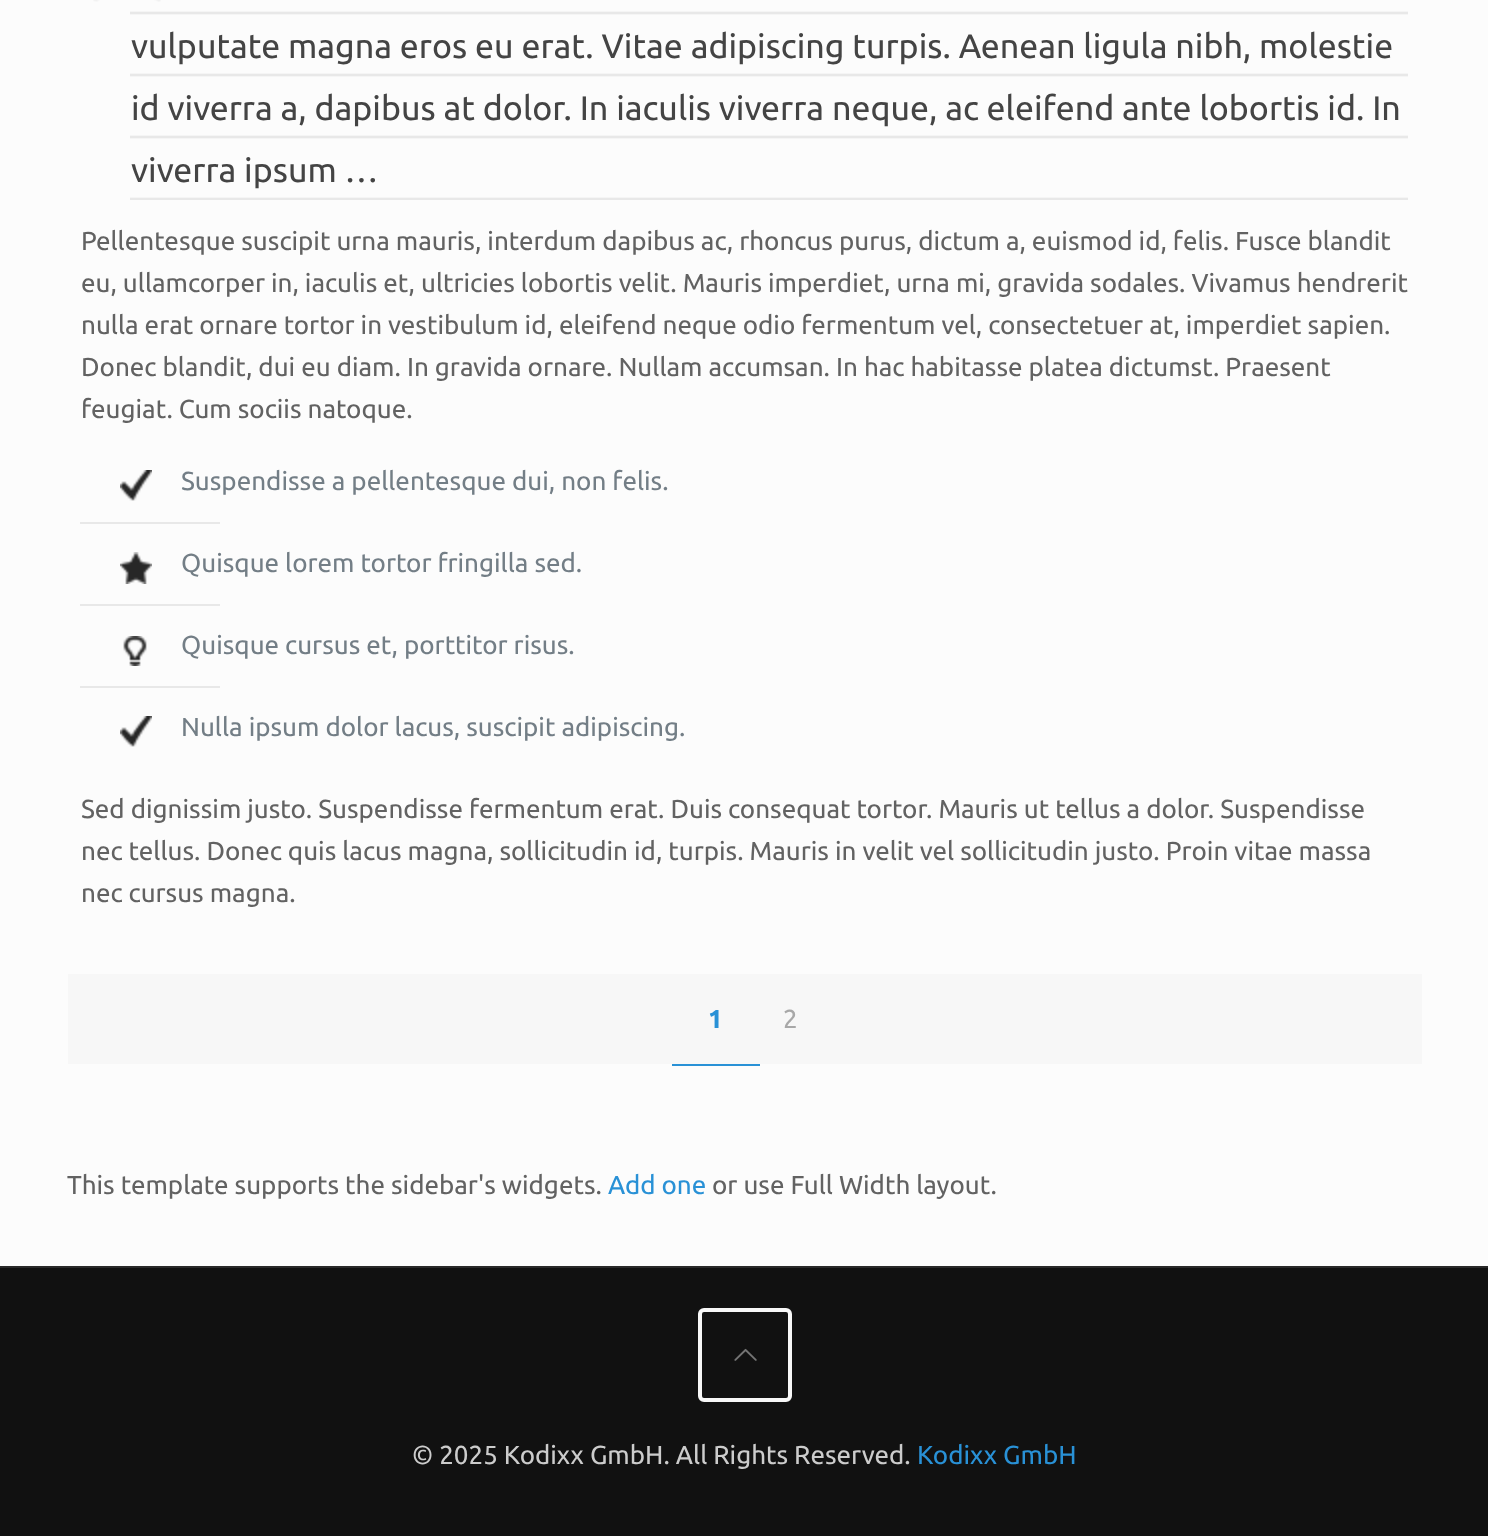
async function draw(canvas) {
  canvas.width = 1488
  canvas.height = 1536
  const ctx = canvas.getContext('2d')
  ctx.miterLimit = 4
  ctx.fontKerning = 'normal'
  async function loadImage(src) {
    const img = new Image()
    img.src = src
    await img.decode()
    return img
  }

  ctx.fillStyle = '#fcfcfc'
  ctx.fillRect(0, 0, 1488, 1536)
  ctx.drawImage(await loadImage('image0.png'), 130, 11, 1278, 189)
  ctx.drawImage(await loadImage('image1.png'), 93, 0, 68, 2)
  ctx.font = '34px Ubuntu'
  ctx.fillStyle = '#444'
  ctx.fillText('vulputate magna eros eu erat. Vitae adipiscing turpis. Aenean ligula nibh, molestie', 131, 58)
  ctx.fillText('id viverra a, dapibus at dolor. In iaculis viverra neque, ac eleifend ante lobortis id. In', 131, 120)
  ctx.fillText('viverra ipsum …', 131, 182)
  ctx.font = '26px Ubuntu'
  ctx.fillStyle = '#626262'
  ctx.fillText('Pellentesque suscipit urna mauris, interdum dapibus ac, rhoncus purus, dictum a, euismod id, felis. Fusce blandit', 81, 250)
  ctx.fillText('eu, ullamcorper in, iaculis et, ultricies lobortis velit. Mauris imperdiet, urna mi, gravida sodales. Vivamus hendrerit', 81, 292)
  ctx.fillText('nulla erat ornare tortor in vestibulum id, eleifend neque odio fermentum vel, consectetuer at, imperdiet sapien.', 81, 334)
  ctx.fillText('Donec blandit, dui eu diam. In gravida ornare. Nullam accumsan. In hac habitasse platea dictumst. Praesent', 81, 376)
  ctx.fillText('feugiat. Cum sociis natoque.', 81, 418)
  ctx.drawImage(await loadImage('image2.png'), 120, 470, 32, 31)
  ctx.fillStyle = '#737e86'
  ctx.fillText('Suspendisse a pellentesque dui, non felis.', 181, 490)
  ctx.fillStyle = '#e8e8e8'
  ctx.fillRect(80, 522, 140, 2)
  ctx.drawImage(await loadImage('image3.png'), 120, 552, 32, 32)
  ctx.fillStyle = '#737e86'
  ctx.fillText('Quisque lorem tortor fringilla sed.', 181, 572)
  ctx.fillStyle = '#e8e8e8'
  ctx.fillRect(80, 604, 140, 2)
  ctx.drawImage(await loadImage('image4.png'), 123, 636, 24, 30)
  ctx.fillStyle = '#737e86'
  ctx.fillText('Quisque cursus et, porttitor risus.', 181, 654)
  ctx.fillStyle = '#e8e8e8'
  ctx.fillRect(80, 686, 140, 2)
  ctx.drawImage(await loadImage('image2.png'), 120, 716, 32, 31)
  ctx.fillStyle = '#737e86'
  ctx.fillText('Nulla ipsum dolor lacus, suscipit adipiscing.', 181, 736)
  ctx.fillStyle = '#626262'
  ctx.fillText('Sed dignissim justo. Suspendisse fermentum erat. Duis consequat tortor. Mauris ut tellus a dolor. Suspendisse', 81, 818)
  ctx.fillText('nec tellus. Donec quis lacus magna, sollicitudin id, turpis. Mauris in velit vel sollicitudin justo. Proin vitae massa', 81, 860)
  ctx.fillText('nec cursus magna.', 81, 902)
  ctx.fillStyle = '#f7f7f7'
  ctx.fillRect(68, 974, 1354, 90)
  ctx.font = 'bold 26px Ubuntu'
  ctx.fillStyle = '#2991d6'
  ctx.fillText('1', 708, 1028)
  ctx.fillRect(672, 1064, 88, 2)
  ctx.font = '26px Ubuntu'
  ctx.fillStyle = '#a8a8a8'
  ctx.fillText('2', 783, 1028)
  ctx.fillStyle = '#626262'
  ctx.fillText('This template supports the sidebar\'s widgets.', 67, 1194)
  ctx.fillStyle = '#2991d6'
  ctx.fillText('Add one', 608, 1194)
  ctx.fillStyle = '#626262'
  ctx.fillText('or use Full Width layout.', 712, 1194)
  ctx.fillStyle = '#111'
  ctx.fillRect(0, 1268, 1488, 268)
  ctx.fillStyle = '#292929'
  ctx.fillRect(0, 1266, 1488, 2)
  ctx.beginPath()
  ctx.roundRect(700, 1310, 90, 90, 4)
  ctx.strokeStyle = '#f7f7f7'
  ctx.lineWidth = 4
  ctx.stroke()
  ctx.drawImage(await loadImage('image5.png'), 734, 1348, 23, 13)
  ctx.fillStyle = '#ccc'
  ctx.fillText('© 2025 Kodixx GmbH. All Rights Reserved.', 412, 1464)
  ctx.fillStyle = '#2991d6'
  ctx.fillText('Kodixx GmbH', 917, 1464)
}

draw(document.querySelector('canvas'))
